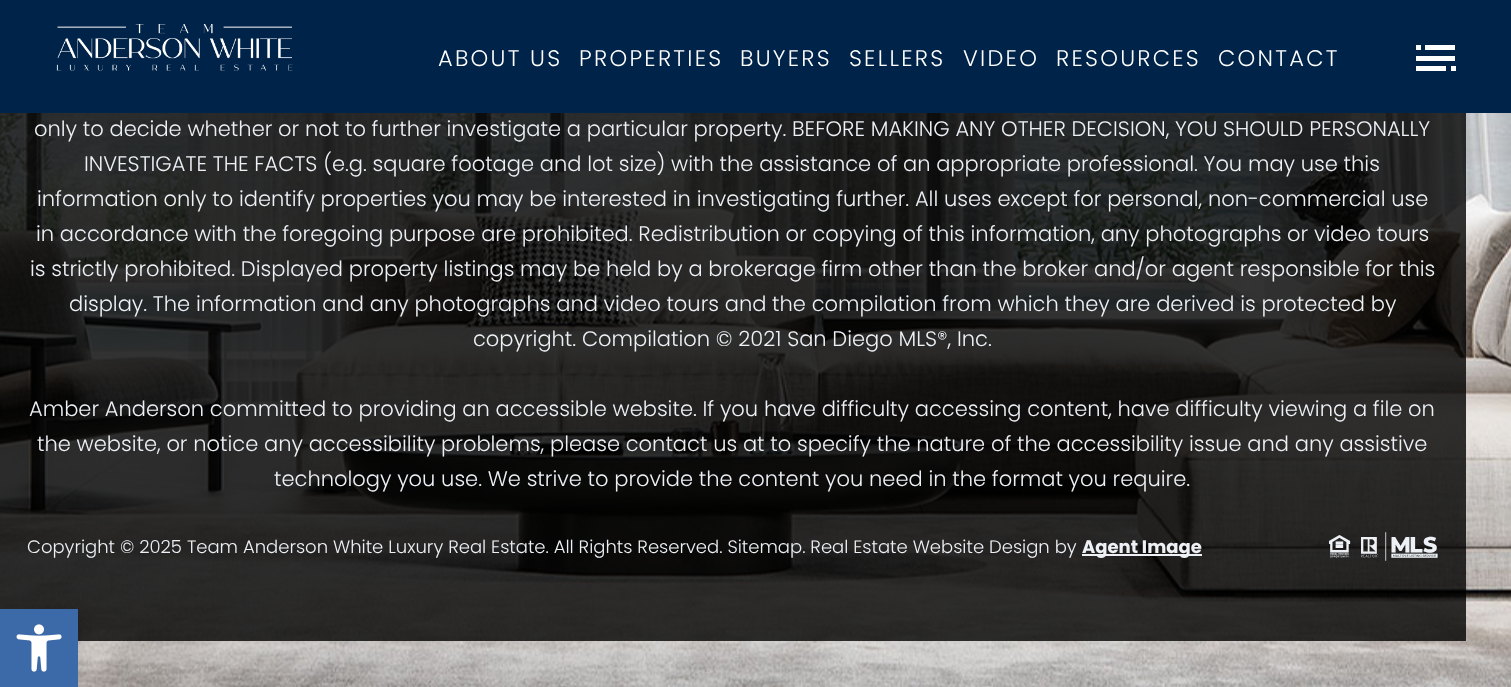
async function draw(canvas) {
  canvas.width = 1511
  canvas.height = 687
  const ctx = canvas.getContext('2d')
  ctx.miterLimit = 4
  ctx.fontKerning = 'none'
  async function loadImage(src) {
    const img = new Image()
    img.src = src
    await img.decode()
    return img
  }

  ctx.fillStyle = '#fff'
  ctx.fillRect(0, 0, 1511, 687)
  ctx.fillStyle = '#002349'
  ctx.fillRect(0, 0, 1511, 113)
  ctx.drawImage(await loadImage('image0.png'), 56, 24, 237, 47)
  ctx.letterSpacing = '2.25px'
  ctx.font = '300 22.5px Poppins'
  ctx.fillStyle = '#fff'
  ctx.fillText('ABOUT US', 438, 66)
  ctx.fillText('PROPERTIES', 579, 66)
  ctx.fillText('BUYERS', 740, 66)
  ctx.fillText('SELLERS', 849, 66)
  ctx.fillText('VIDEO', 963, 66)
  ctx.fillText('RESOURCES', 1056, 66)
  ctx.fillText('CONTACT', 1218, 66)
  ctx.fillRect(1416, 45, 5, 5)
  ctx.fillRect(1425, 45, 30, 5)
  ctx.fillRect(1416, 56, 39, 5)
  ctx.fillRect(1416, 66, 30, 5)
  ctx.fillRect(1451, 66, 5, 5)
  ctx.drawImage(await loadImage('image1.png'), 0, 113, 1511, 574)
  ctx.letterSpacing = '0px'
  ctx.font = '300 21px Poppins'
  ctx.fillStyle = '#edf1f6'
  ctx.fillText('only to decide whether or not to further investigate a particular property. BEFORE MAKING ANY OTHER DECISION, YOU SHOULD PERSONALLY', 34, 136)
  ctx.fillText('INVESTIGATE THE FACTS (e.g. square footage and lot size) with the assistance of an appropriate professional. You may use this', 84, 171)
  ctx.fillText('information only to identify properties you may be interested in investigating further. All uses except for personal, non-commercial use', 37, 206)
  ctx.fillText('in accordance with the foregoing purpose are prohibited. Redistribution or copying of this information, any photographs or video tours', 36, 241)
  ctx.fillText('is strictly prohibited. Displayed property listings may be held by a brokerage firm other than the broker and/or agent responsible for this', 30, 276)
  ctx.fillText('display. The information and any photographs and video tours and the compilation from which they are derived is protected by', 69, 311)
  ctx.fillText('copyright. Compilation © 2021 San Diego MLS®, Inc.', 473, 346)
  ctx.fillText('Amber Anderson committed to providing an accessible website. If you have difficulty accessing content, have difficulty viewing a file on', 29, 416)
  ctx.fillText('the website, or notice any accessibility problems, please contact us at to specify the nature of the accessibility issue and any assistive', 37, 451)
  ctx.fillText('technology you use. We strive to provide the content you need in the format you require.', 274, 486)
  ctx.font = '300 18px Poppins'
  ctx.fillText('Copyright © 2025 Team Anderson White Luxury Real Estate. All Rights Reserved. Sitemap. Real Estate Website Design by', 27, 553)
  ctx.fillRect(1082, 554, 120, 2)
  ctx.font = 'bold 18px Poppins'
  ctx.fillText('Agent Image', 1082, 553)
  ctx.font = '22.5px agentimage'
  ctx.fillText('򰂐', 1329, 556)
  ctx.font = '28.5px agentimage'
  ctx.fillText('򰌇', 1361, 559)
  ctx.fillStyle = '#0000001a'
  ctx.filter = 'blur(7.5px)'
  ctx.beginPath()
  ctx.rect(0, 609, 78, 78)
  ctx.fill()
  ctx.filter = 'none'
  ctx.fillStyle = '#3c69a7'
  ctx.fillRect(0, 609, 78, 78)
  ctx.drawImage(await loadImage('image2.png'), 16, 624, 46, 48)
}

draw(document.querySelector('canvas'))
